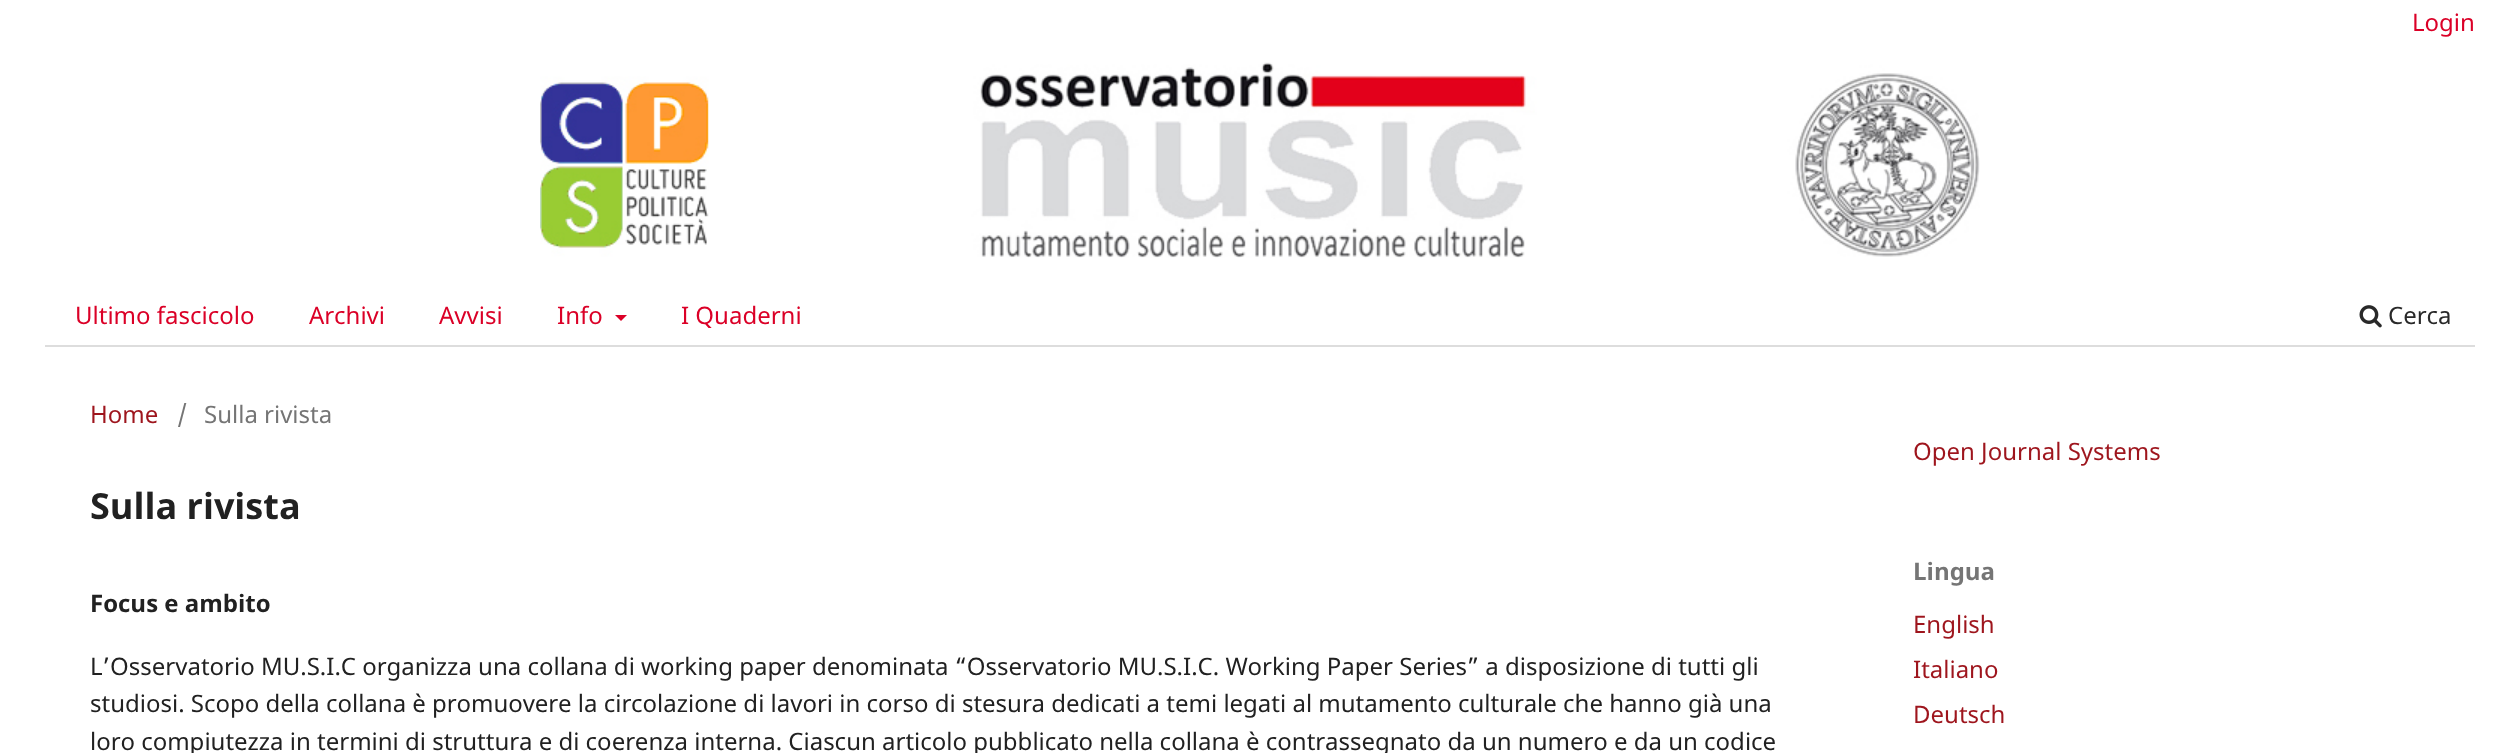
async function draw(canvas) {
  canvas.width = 2520
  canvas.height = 753
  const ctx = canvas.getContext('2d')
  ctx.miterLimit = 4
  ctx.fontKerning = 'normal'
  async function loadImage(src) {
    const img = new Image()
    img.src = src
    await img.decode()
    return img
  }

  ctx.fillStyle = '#fff'
  ctx.fillRect(0, 0, 2520, 753)
  ctx.fillStyle = '#ddd'
  ctx.fillRect(45, 345, 2430, 2)
  ctx.font = '24px Noto Sans'
  ctx.fillStyle = '#db0027'
  ctx.fillText('Login', 2412, 31)
  ctx.fillText('Ultimo fascicolo', 75, 324)
  ctx.fillText('Archivi', 309, 324)
  ctx.fillText('Avvisi', 439, 324)
  ctx.fillText('Info', 557, 324)
  ctx.beginPath()
  ctx.moveTo(615, 315)
  ctx.lineTo(627, 315)
  ctx.lineTo(621, 321)
  ctx.closePath()
  ctx.fill()
  ctx.fillText('I Quaderni', 681, 324)
  ctx.drawImage(await loadImage('image0.png'), 2359, 305, 23, 23)
  ctx.fillStyle = '#292929'
  ctx.fillText('Cerca', 2388, 324)
  ctx.drawImage(await loadImage('image1.png'), 540, 62, 1440, 196)
  ctx.fillStyle = '#9e151d'
  ctx.fillText('Home', 90, 423)
  ctx.fillStyle = '#757575'
  ctx.fillText('/', 177, 423)
  ctx.fillText('Sulla rivista', 204, 423)
  ctx.font = 'bold 36px Noto Sans'
  ctx.fillStyle = '#212121'
  ctx.fillText('Sulla rivista', 90, 519)
  ctx.font = 'bold 24px Noto Sans'
  ctx.fillText('Focus e ambito', 90, 612)
  ctx.font = '24px Noto Sans'
  ctx.fillText('L’Osservatorio MU.S.I.C organizza una collana di working paper denominata “Osservatorio MU.S.I.C. Working Paper Series” a disposizione di tutti gli', 90, 675)
  ctx.fillText('studiosi. Scopo della collana è promuovere la circolazione di lavori in corso di stesura dedicati a temi legati al mutamento culturale che hanno già una', 90, 712)
  ctx.fillText('loro compiutezza in termini di struttura e di coerenza interna. Ciascun articolo pubblicato nella collana è contrassegnato da un numero e da un codice', 90, 750)
  ctx.fillStyle = '#9e151d'
  ctx.fillText('Open Journal Systems', 1913, 460)
  ctx.font = 'bold 24px Noto Sans'
  ctx.fillStyle = '#757575'
  ctx.fillText('Lingua', 1913, 580)
  ctx.font = '24px Noto Sans'
  ctx.fillStyle = '#9e151d'
  ctx.fillText('English', 1913, 633)
  ctx.fillText('Italiano', 1913, 678)
  ctx.fillText('Deutsch', 1913, 723)
}

draw(document.querySelector('canvas'))
